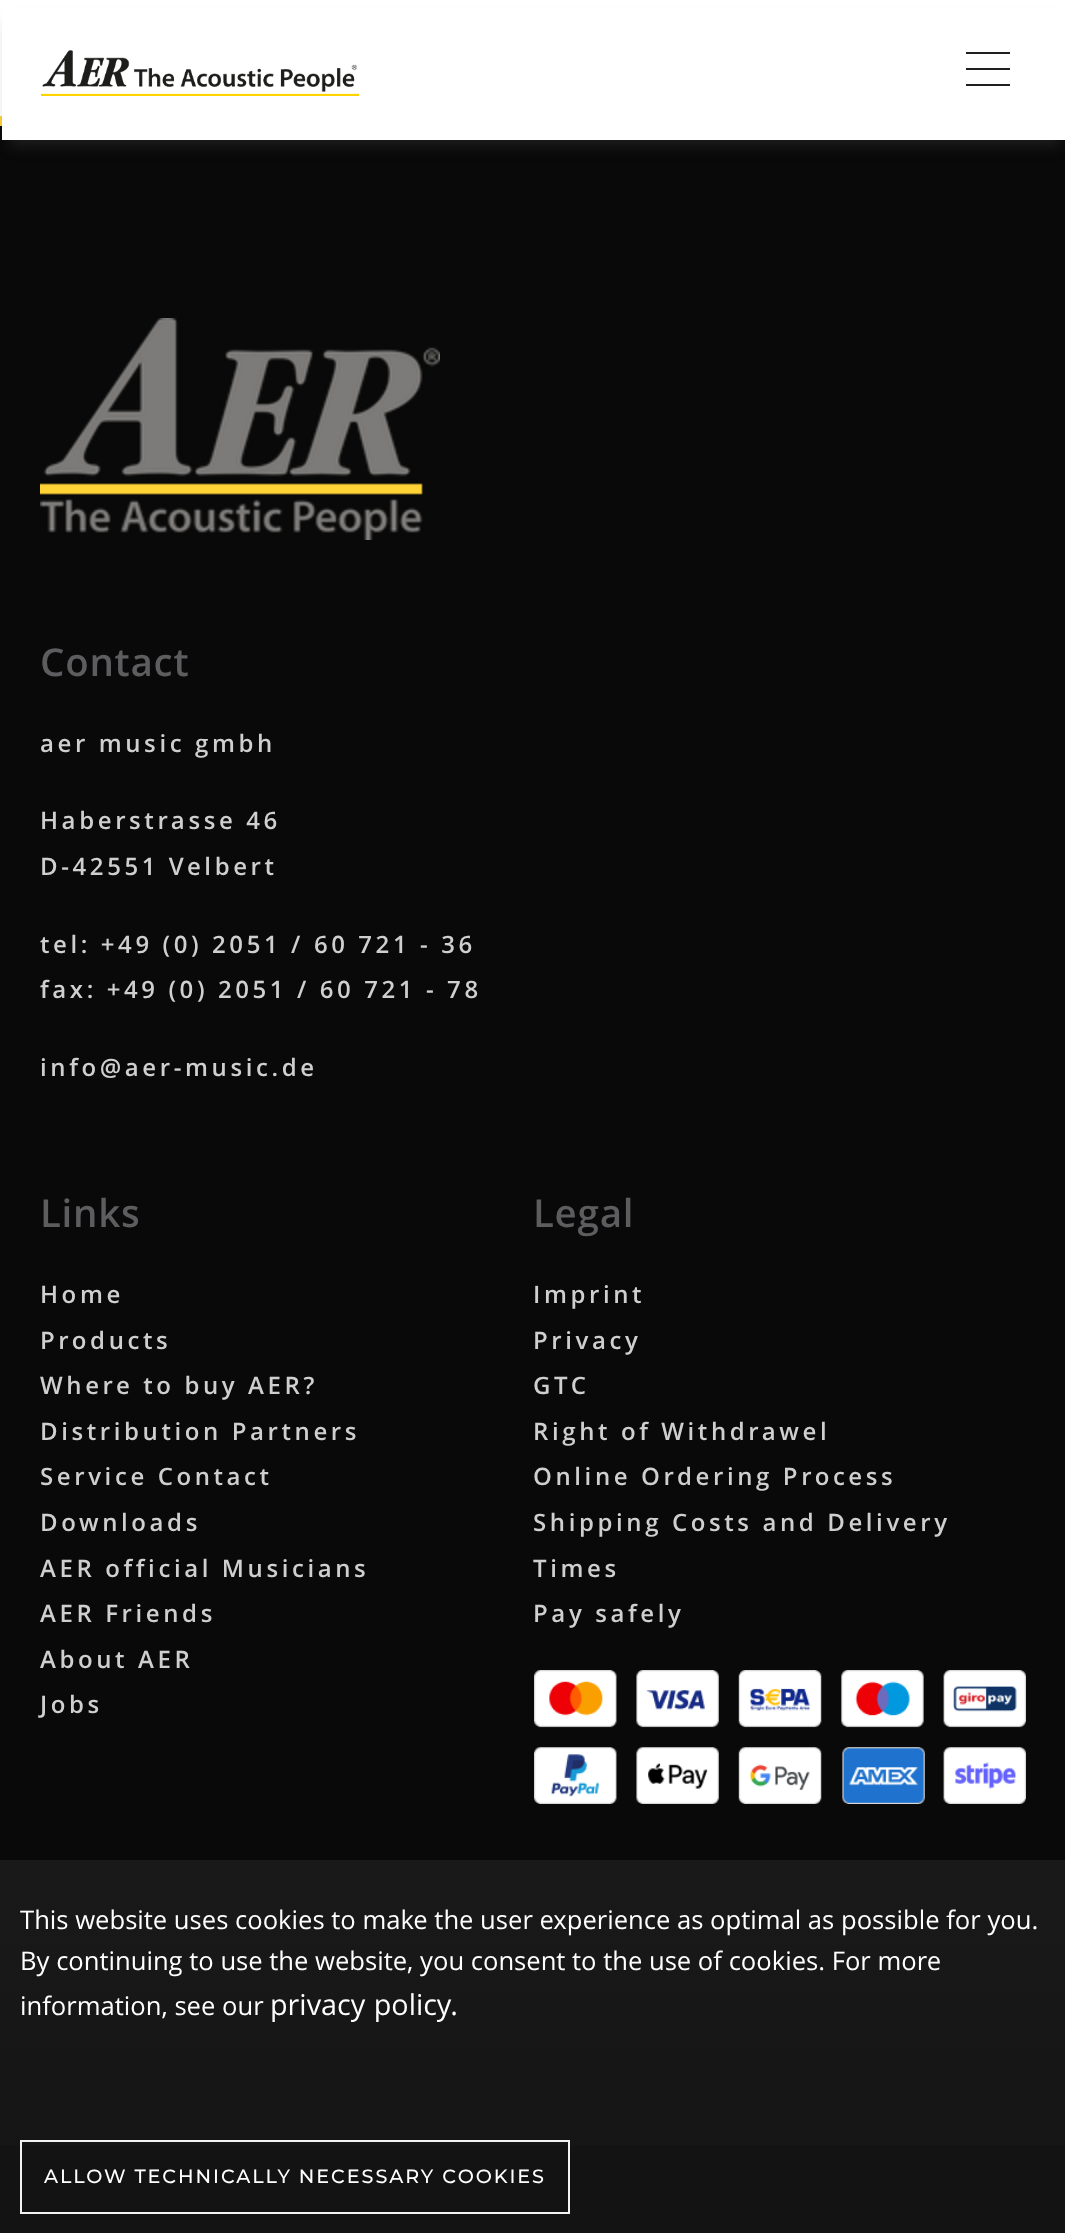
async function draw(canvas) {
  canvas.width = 1065
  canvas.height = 2233
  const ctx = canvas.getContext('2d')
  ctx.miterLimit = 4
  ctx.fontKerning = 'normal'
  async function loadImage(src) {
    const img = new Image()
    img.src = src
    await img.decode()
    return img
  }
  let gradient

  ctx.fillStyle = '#fff'
  ctx.fillRect(0, 0, 1065, 2233)
  ctx.fillStyle = '#090909'
  ctx.fillRect(0, 126, 1065, 1734)
  ctx.fillStyle = '#ffd236'
  ctx.fillRect(0, 116, 2, 10)
  ctx.fillStyle = '#2b2b2b99'
  ctx.filter = 'blur(7px)'
  ctx.beginPath()
  ctx.rect(10, 22, 1050, 124)
  ctx.fill()
  ctx.filter = 'none'
  ctx.fillStyle = '#fff'
  ctx.fillRect(2, 8, 1063, 132)
  ctx.drawImage(await loadImage('image0.png'), 41, 50, 318, 46)
  ctx.fillStyle = '#1f1f1f'
  ctx.fillRect(966, 52, 44, 2)
  ctx.fillRect(966, 68, 44, 2)
  ctx.fillRect(966, 84, 44, 2)
  ctx.fillStyle = '#131313'
  ctx.fillRect(0, 1860, 1065, 373)
  ctx.drawImage(await loadImage('image1.png'), 40, 318, 400, 222)
  ctx.letterSpacing = '0.75px'
  ctx.font = '600 38.5px Open Sans'
  ctx.fillStyle = '#5d5d60'
  ctx.fillText('Contact', 40, 676)
  ctx.letterSpacing = '3.6px'
  ctx.font = '600 24px Open Sans'
  ctx.fillStyle = '#cfcfcf'
  ctx.fillText('aer music gmbh', 40, 752)
  ctx.fillText('Haberstrasse 46', 40, 829)
  ctx.fillText('D-42551 Velbert', 40, 875)
  ctx.fillText('tel: +49 (0) 2051 / 60 721 - 36', 40, 953)
  ctx.fillText('fax: +49 (0) 2051 / 60 721 - 78', 40, 998)
  ctx.fillText('info@aer-music.de', 40, 1076)
  ctx.letterSpacing = '0.75px'
  ctx.font = '600 38.5px Open Sans'
  ctx.fillStyle = '#5d5d60'
  ctx.fillText('Links', 40, 1227)
  ctx.letterSpacing = '3.6px'
  ctx.font = '600 24px Open Sans'
  ctx.fillStyle = '#cfcfcf'
  ctx.fillText('Home', 40, 1303)
  ctx.fillText('Products', 40, 1349)
  ctx.fillText('Where to buy AER?', 40, 1394)
  ctx.fillText('Distribution Partners', 40, 1440)
  ctx.fillText('Service Contact', 40, 1485)
  ctx.fillText('Downloads', 40, 1531)
  ctx.fillText('AER official Musicians', 40, 1577)
  ctx.fillText('AER Friends', 40, 1622)
  ctx.fillText('About AER', 40, 1668)
  ctx.fillText('Jobs', 40, 1713)
  ctx.letterSpacing = '0.75px'
  ctx.font = '600 38.5px Open Sans'
  ctx.fillStyle = '#5d5d60'
  ctx.fillText('Legal', 533, 1227)
  ctx.letterSpacing = '3.6px'
  ctx.font = '600 24px Open Sans'
  ctx.fillStyle = '#cfcfcf'
  ctx.fillText('Imprint', 533, 1303)
  ctx.fillText('Privacy', 533, 1349)
  ctx.fillText('GTC', 533, 1394)
  ctx.fillText('Right of Withdrawel', 533, 1440)
  ctx.fillText('Online Ordering Process', 533, 1485)
  ctx.fillText('Shipping Costs and Delivery', 533, 1531)
  ctx.fillText('Times', 533, 1577)
  ctx.fillText('Pay safely', 533, 1622)
  ctx.drawImage(await loadImage('image2.png'), 534, 1670, 492, 134)
  gradient = ctx.createLinearGradient(533, 1860, 533, 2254)
  gradient.addColorStop(0, '#1a1a1ae6')
  gradient.addColorStop(1, '#141414e6')
  ctx.fillStyle = gradient
  ctx.fillRect(0, 1860, 1065, 285)
  ctx.letterSpacing = '0px'
  ctx.font = '25.6px Open Sans'
  ctx.fillStyle = '#fff'
  ctx.fillText('This website uses cookies to make the user experience as optimal as possible for you.', 20, 1929)
  ctx.fillText('By continuing to use the website, you consent to the use of cookies. For more', 20, 1970)
  ctx.fillText('information, see our', 20, 2015)
  ctx.wordSpacing = '1px'
  ctx.font = '28.75px Open Sans'
  ctx.fillText('privacy policy.', 270, 2015)
  ctx.strokeStyle = '#f3f3f3'
  ctx.lineWidth = 2
  ctx.strokeRect(21, 2141, 548, 72)
  ctx.letterSpacing = '1.9px'
  ctx.wordSpacing = '0px'
  ctx.font = '500 19.2px Montserrat'
  ctx.fillText('ALLOW TECHNICALLY NECESSARY COOKIES', 44, 2183)
}

draw(document.querySelector('canvas'))
